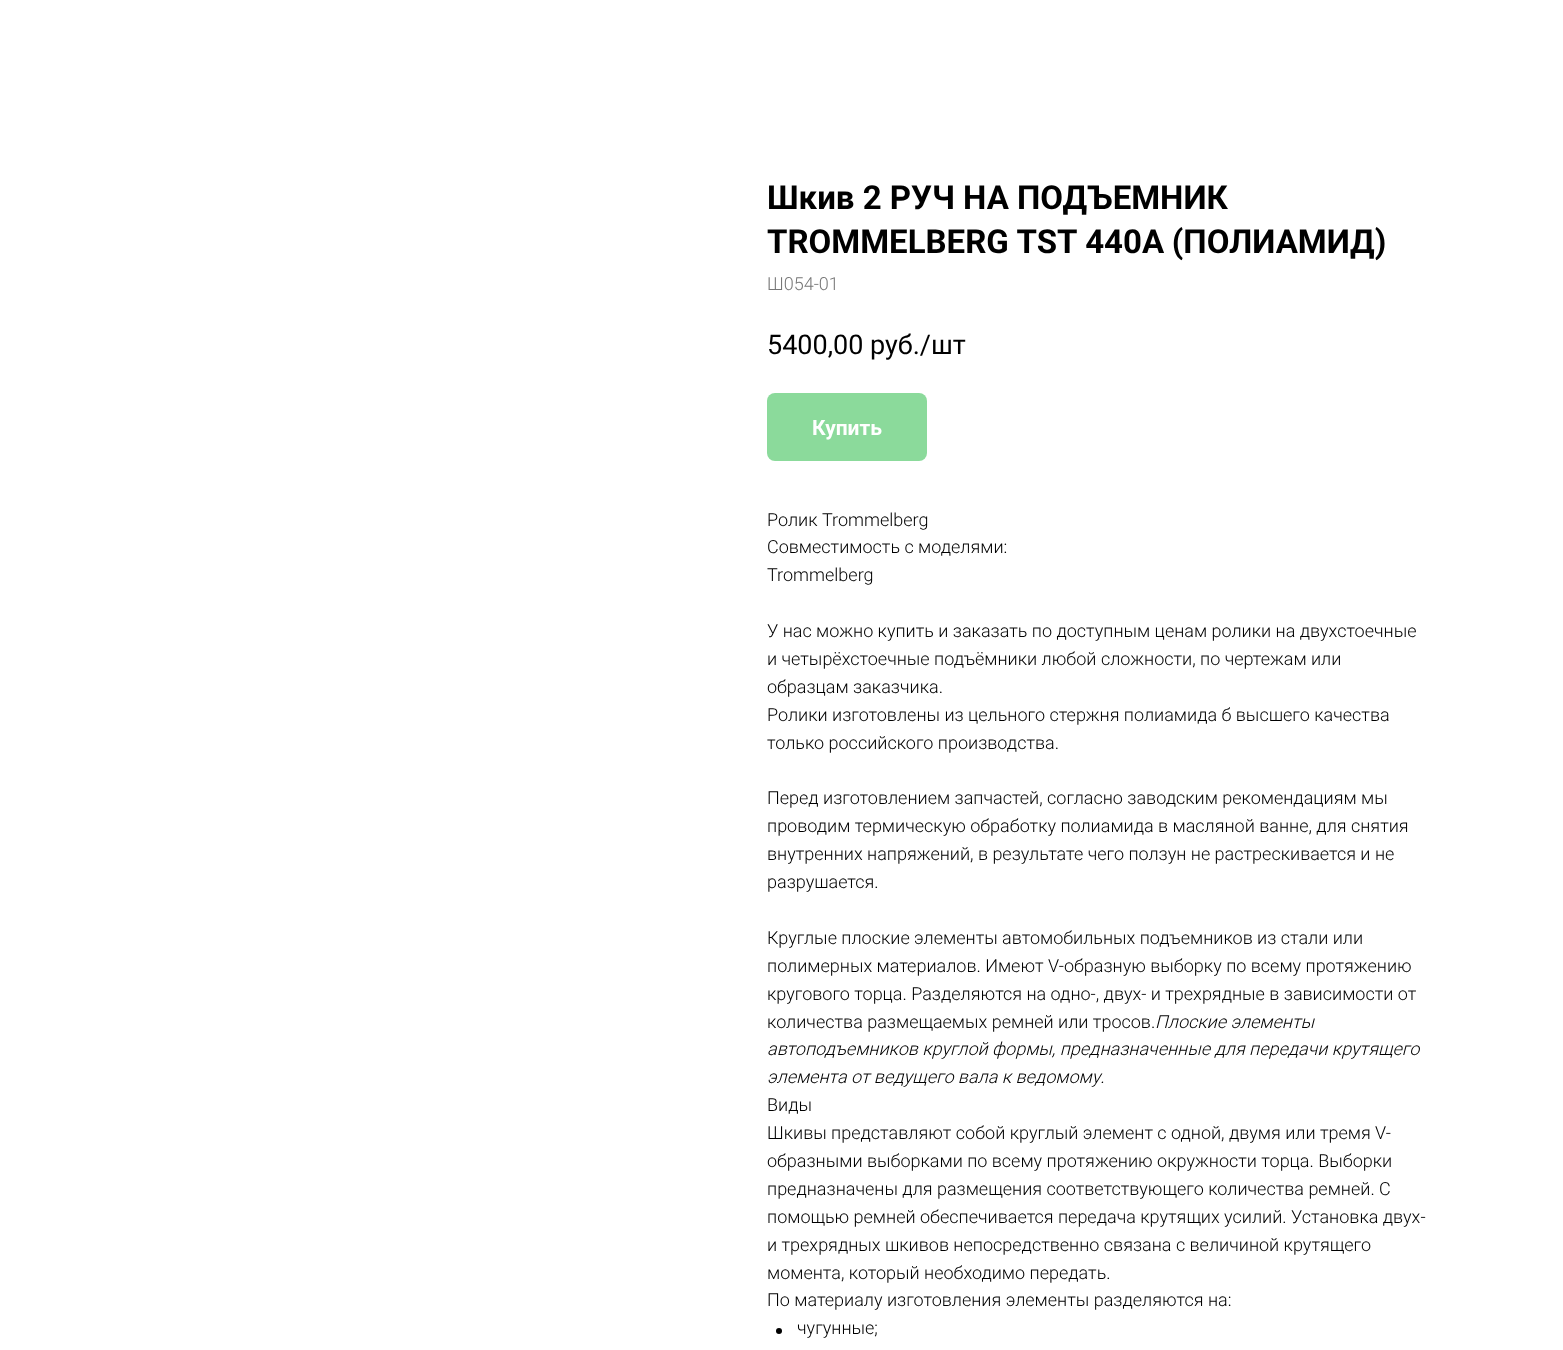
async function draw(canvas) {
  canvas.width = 1563
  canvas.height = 1350
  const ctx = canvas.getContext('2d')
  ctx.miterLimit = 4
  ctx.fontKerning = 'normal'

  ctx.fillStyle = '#fff'
  ctx.fillRect(0, 0, 1563, 1350)
  ctx.font = 'bold 33px Roboto'
  ctx.fillStyle = '#000'
  ctx.fillText('Шкив 2 РУЧ НА ПОДЪЕМНИК', 767, 209)
  ctx.wordSpacing = '-0.5px'
  ctx.fillText('TROMMELBERG TST 440А (ПОЛИАМИД)', 767, 253)
  ctx.wordSpacing = '0px'
  ctx.font = '300 18px Roboto'
  ctx.fillStyle = '#777'
  ctx.fillText('Ш054-01', 767, 290)
  ctx.font = '27px Roboto'
  ctx.fillStyle = '#000'
  ctx.fillText('5400,00', 767, 354)
  ctx.fillText('руб./шт', 870, 354)
  ctx.fillStyle = '#8bda9b'
  ctx.beginPath()
  ctx.roundRect(767, 393, 160, 68, 8)
  ctx.fill()
  ctx.font = 'bold 21px Roboto'
  ctx.fillStyle = '#fff'
  ctx.fillText('Купить', 812, 435)
  ctx.font = '300 18px Roboto'
  ctx.fillStyle = '#000'
  ctx.fillText('Ролик Trommelberg', 767, 526)
  ctx.fillText('Совместимость с моделями:', 767, 553)
  ctx.fillText('Trommelberg', 767, 581)
  ctx.fillText('У нас можно купить и заказать по доступным ценам ролики на двухстоечные', 767, 637)
  ctx.fillText('и четырёхстоечные подъёмники любой сложности, по чертежам или', 767, 665)
  ctx.fillText('образцам заказчика.', 767, 693)
  ctx.fillText('Ролики изготовлены из цельного стержня полиамида б высшего качества', 767, 721)
  ctx.fillText('только российского производства.', 767, 749)
  ctx.fillText('Перед изготовлением запчастей, согласно заводским рекомендациям мы', 767, 804)
  ctx.fillText('проводим термическую обработку полиамида в масляной ванне, для снятия', 767, 832)
  ctx.fillText('внутренних напряжений, в результате чего ползун не растрескивается и не', 767, 860)
  ctx.fillText('разрушается.', 767, 888)
  ctx.fillText('Круглые плоские элементы автомобильных подъемников из стали или', 767, 944)
  ctx.fillText('полимерных материалов. Имеют V-образную выборку по всему протяжению', 767, 972)
  ctx.fillText('кругового торца. Разделяются на одно-, двух- и трехрядные в зависимости от', 767, 1000)
  ctx.fillText('количества размещаемых ремней или тросов.', 767, 1028)
  ctx.font = 'italic 300 18px Roboto'
  ctx.fillText('Плоские элементы', 1155, 1028)
  ctx.fillText('автоподъемников круглой формы, предназначенные для передачи крутящего', 767, 1055)
  ctx.fillText('элемента от ведущего вала к ведомому.', 767, 1083)
  ctx.font = '300 18px Roboto'
  ctx.fillText('Виды', 767, 1111)
  ctx.fillText('Шкивы представляют собой круглый элемент с одной, двумя или тремя V-', 767, 1139)
  ctx.fillText('образными выборками по всему протяжению окружности торца. Выборки', 767, 1167)
  ctx.fillText('предназначены для размещения соответствующего количества ремней. С', 767, 1195)
  ctx.fillText('помощью ремней обеспечивается передача крутящих усилий. Установка двух-', 767, 1223)
  ctx.fillText('и трехрядных шкивов непосредственно связана с величиной крутящего', 767, 1251)
  ctx.fillText('момента, который необходимо передать.', 767, 1279)
  ctx.fillText('По материалу изготовления элементы разделяются на:', 767, 1306)
  ctx.beginPath()
  ctx.arc(779, 1331, 3, 0, 2 * Math.PI)
  ctx.fill()
  ctx.fillText('чугунные;', 797, 1334)
}

draw(document.querySelector('canvas'))
